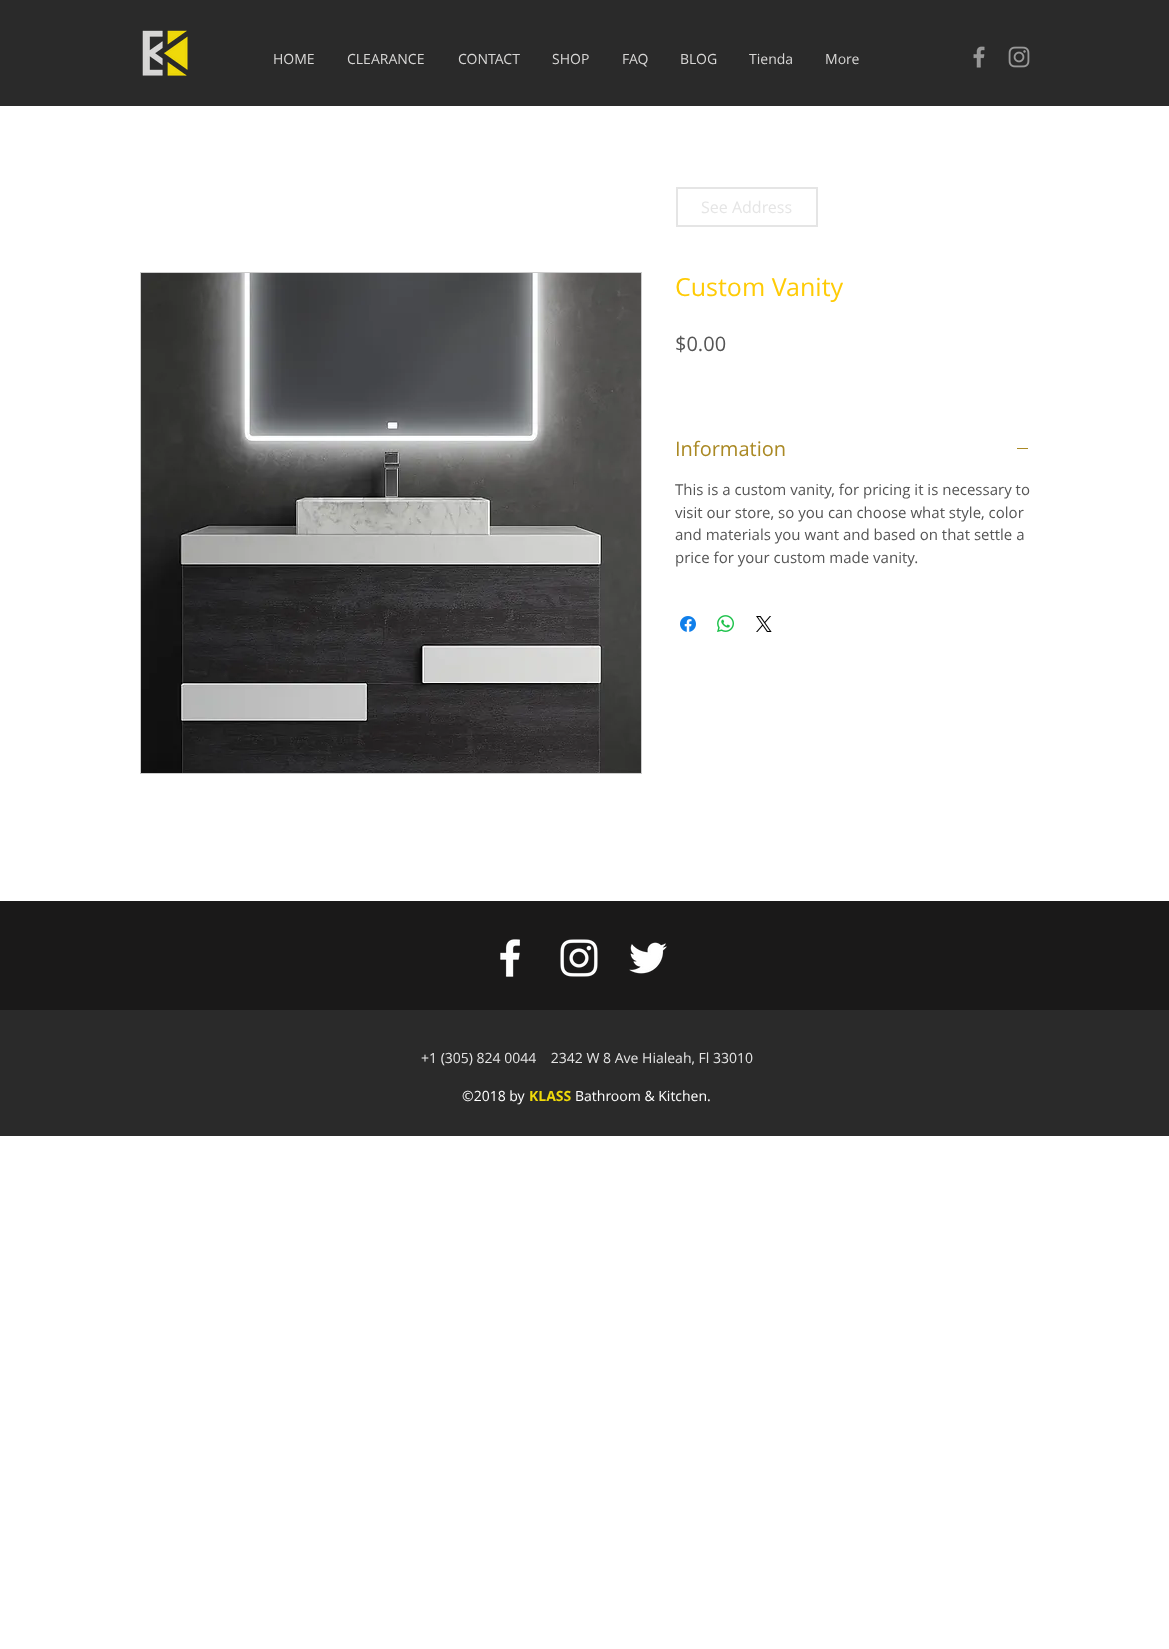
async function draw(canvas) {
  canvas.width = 1169
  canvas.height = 1649
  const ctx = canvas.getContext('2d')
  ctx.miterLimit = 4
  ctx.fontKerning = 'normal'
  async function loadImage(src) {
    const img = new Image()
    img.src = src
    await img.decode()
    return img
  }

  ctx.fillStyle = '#fff'
  ctx.fillRect(0, 0, 1169, 1649)
  ctx.fillStyle = '#2a2a2a'
  ctx.fillRect(0, 0, 1169, 106)
  ctx.drawImage(await loadImage('image0.png'), 142, 30, 46, 46)
  ctx.font = '14px Open Sans'
  ctx.fillStyle = '#d8d7d6'
  ctx.fillText('HOME', 273, 64)
  ctx.fillText('CLEARANCE', 347, 64)
  ctx.fillText('CONTACT', 458, 64)
  ctx.fillText('SHOP', 552, 64)
  ctx.fillText('FAQ', 622, 64)
  ctx.fillText('BLOG', 680, 64)
  ctx.fillText('Tienda', 749, 64)
  ctx.fillText('More', 825, 64)
  ctx.drawImage(await loadImage('image1.png'), 973, 46, 12, 22)
  ctx.drawImage(await loadImage('image2.png'), 1008, 46, 22, 22)
  ctx.strokeStyle = '#e5e5e5'
  ctx.lineWidth = 2
  ctx.strokeRect(677, 188, 140, 38)
  ctx.font = '16px Open Sans'
  ctx.fillStyle = '#e5e5e5'
  ctx.fillText('See Address', 701, 213)
  ctx.strokeStyle = '#ccc'
  ctx.lineWidth = 1
  ctx.strokeRect(140.5, 272.5, 501, 501)
  ctx.drawImage(await loadImage('image3.png'), 141, 273, 500, 500)
  ctx.font = '25px Open Sans'
  ctx.fillStyle = '#ffcb05'
  ctx.fillText('Custom Vanity', 675, 296)
  ctx.font = '20px Open Sans'
  ctx.fillStyle = '#555'
  ctx.fillText('$0.00', 675, 351)
  ctx.fillStyle = '#aa8924'
  ctx.fillText('Information', 675, 456)
  ctx.fillRect(1017, 448, 11, 1)
  ctx.font = '15px Open Sans'
  ctx.fillStyle = '#555'
  ctx.fillText('This is a custom vanity, for pricing it is necessary to', 675, 495)
  ctx.fillText('visit our store, so you can choose what style, color', 675, 518)
  ctx.fillText('and materials you want and based on that settle a', 675, 540)
  ctx.fillText('price for your custom made vanity.', 675, 563)
  ctx.drawImage(await loadImage('image4.png'), 680, 616, 16, 16)
  ctx.drawImage(await loadImage('image5.png'), 717, 615, 17, 17)
  ctx.drawImage(await loadImage('image6.png'), 756, 616, 16, 16)
  ctx.fillStyle = '#2a2a2a'
  ctx.fillRect(0, 1010, 1169, 126)
  ctx.fillStyle = '#1a1919'
  ctx.fillRect(0, 901, 1169, 109)
  ctx.drawImage(await loadImage('image7.png'), 500, 939, 20, 38)
  ctx.drawImage(await loadImage('image8.png'), 560, 939, 38, 38)
  ctx.drawImage(await loadImage('image9.png'), 629, 942, 38, 32)
  ctx.font = '14px Open Sans'
  ctx.fillStyle = '#e5e5e5'
  ctx.fillText('+1 (305) 824 0044    2342 W 8 Ave Hialeah, Fl 33010', 421, 1063)
  ctx.fillStyle = '#fff'
  ctx.fillText('©2018 by', 462, 1101)
  ctx.font = 'bold 14px Open Sans'
  ctx.fillStyle = '#efd90a'
  ctx.fillText('KLASS', 529, 1101)
  ctx.font = '14px Open Sans'
  ctx.fillStyle = '#fff'
  ctx.fillText('Bathroom & Kitchen.', 575, 1101)
}

draw(document.querySelector('canvas'))
